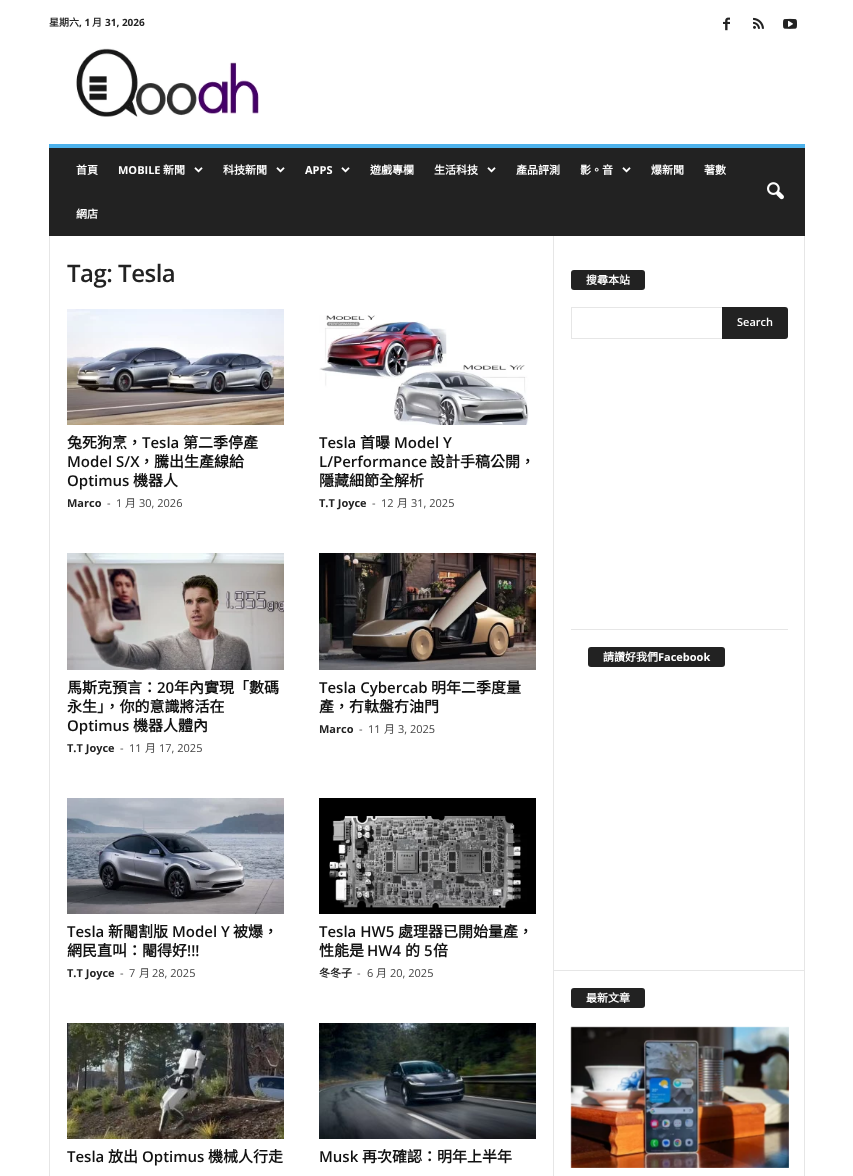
async function draw(canvas) {
  canvas.width = 853
  canvas.height = 1176
  const ctx = canvas.getContext('2d')
  ctx.miterLimit = 4
  ctx.fontKerning = 'normal'
  async function loadImage(src) {
    const img = new Image()
    img.src = src
    await img.decode()
    return img
  }

  ctx.fillStyle = '#fff'
  ctx.fillRect(0, 0, 853, 1176)
  ctx.font = 'bold 10px Noto Sans CJK TC'
  ctx.fillStyle = '#222'
  ctx.fillText('星期六', 49, 26)
  ctx.font = 'bold 10px Open Sans'
  ctx.fillText(', 1', 79, 26)
  ctx.font = 'bold 10px Noto Sans CJK TC'
  ctx.fillText('月', 92, 26)
  ctx.font = 'bold 10px Open Sans'
  ctx.fillText('31, 2026', 105, 26)
  ctx.drawImage(await loadImage('image0.png'), 723, 17, 7, 14)
  ctx.drawImage(await loadImage('image1.png'), 753, 17, 11, 12)
  ctx.drawImage(await loadImage('image2.png'), 783, 18, 14, 11)
  ctx.drawImage(await loadImage('image3.png'), 76, 48, 183, 69)
  ctx.fillRect(49, 148, 756, 88)
  ctx.fillStyle = '#4db2ec'
  ctx.fillRect(49, 144, 756, 4)
  ctx.font = 'bold 11px Noto Sans CJK TC'
  ctx.fillStyle = '#fff'
  ctx.fillText('首頁', 76, 174)
  ctx.font = 'bold 11px Open Sans'
  ctx.fillText('MOBILE', 118, 174)
  ctx.font = 'bold 11px Noto Sans CJK TC'
  ctx.fillText('新聞', 163, 174)
  ctx.drawImage(await loadImage('image4.png'), 194, 167, 9, 6)
  ctx.fillText('科技新聞', 223, 174)
  ctx.drawImage(await loadImage('image4.png'), 276, 167, 9, 6)
  ctx.font = 'bold 11px Open Sans'
  ctx.fillText('APPS', 305, 174)
  ctx.drawImage(await loadImage('image4.png'), 341, 167, 9, 6)
  ctx.font = 'bold 11px Noto Sans CJK TC'
  ctx.fillText('遊戲專欄', 370, 174)
  ctx.fillText('生活科技', 434, 174)
  ctx.drawImage(await loadImage('image4.png'), 487, 167, 9, 6)
  ctx.fillText('產品評測', 516, 174)
  ctx.fillText('影。音', 580, 174)
  ctx.drawImage(await loadImage('image4.png'), 622, 167, 9, 6)
  ctx.fillText('爆新聞', 651, 174)
  ctx.fillText('著數', 704, 174)
  ctx.fillText('網店', 76, 218)
  ctx.drawImage(await loadImage('image5.png'), 767, 182, 17, 18)
  ctx.fillStyle = '#e6e6e6'
  ctx.fillRect(49, 236, 1, 940)
  ctx.letterSpacing = '-0.5px'
  ctx.font = '600 24px Open Sans'
  ctx.fillStyle = '#222'
  ctx.fillText('Tag: Tesla', 67, 282)
  ctx.drawImage(await loadImage('image6.png'), 67, 309, 217, 116)
  ctx.letterSpacing = '0px'
  ctx.font = 'bold 15px Noto Sans CJK TC'
  ctx.fillStyle = '#111'
  ctx.fillText('兔死狗烹，', 67, 448)
  ctx.font = '600 15px Open Sans'
  ctx.fillText('Tesla', 142, 448)
  ctx.font = 'bold 15px Noto Sans CJK TC'
  ctx.fillText('第二季停產', 183, 448)
  ctx.font = '600 15px Open Sans'
  ctx.fillText('Model S/X', 67, 467)
  ctx.font = 'bold 15px Noto Sans CJK TC'
  ctx.fillText('，騰出生產線給', 139, 467)
  ctx.font = '600 15px Open Sans'
  ctx.fillText('Optimus', 67, 486)
  ctx.font = 'bold 15px Noto Sans CJK TC'
  ctx.fillText('機器人', 133, 486)
  ctx.font = 'bold 11px Open Sans'
  ctx.fillStyle = '#222'
  ctx.fillText('Marco', 67, 507)
  ctx.font = '11px Open Sans'
  ctx.fillStyle = '#444'
  ctx.fillText('-', 107, 507)
  ctx.fillText('1', 116, 507)
  ctx.font = '11px Noto Sans CJK TC'
  ctx.fillText('月', 125, 507)
  ctx.font = '11px Open Sans'
  ctx.fillText('30, 2026', 139, 507)
  ctx.drawImage(await loadImage('image7.png'), 319, 315, 210, 110)
  ctx.font = '600 15px Open Sans'
  ctx.fillStyle = '#111'
  ctx.fillText('Tesla', 319, 448)
  ctx.font = 'bold 15px Noto Sans CJK TC'
  ctx.fillText('首曝', 360, 448)
  ctx.font = '600 15px Open Sans'
  ctx.fillText('Model Y', 394, 448)
  ctx.fillText('L/Performance', 319, 467)
  ctx.font = 'bold 15px Noto Sans CJK TC'
  ctx.fillText('設計手稿公開，', 430, 467)
  ctx.fillText('隱藏細節全解析', 319, 486)
  ctx.font = 'bold 11px Open Sans'
  ctx.fillStyle = '#222'
  ctx.fillText('T.T Joyce', 319, 507)
  ctx.font = '11px Open Sans'
  ctx.fillStyle = '#444'
  ctx.fillText('-', 372, 507)
  ctx.fillText('12', 381, 507)
  ctx.font = '11px Noto Sans CJK TC'
  ctx.fillText('月', 397, 507)
  ctx.font = '11px Open Sans'
  ctx.fillText('31, 2025', 411, 507)
  ctx.drawImage(await loadImage('image8.png'), 67, 553, 217, 117)
  ctx.font = 'bold 15px Noto Sans CJK TC'
  ctx.fillStyle = '#111'
  ctx.fillText('馬斯克預言：', 67, 693)
  ctx.font = '600 15px Open Sans'
  ctx.fillText('20', 157, 693)
  ctx.font = 'bold 15px Noto Sans CJK TC'
  ctx.fillText('年內實現「數碼', 174, 693)
  ctx.fillText('永生」，你的意識將活在', 67, 712)
  ctx.font = '600 15px Open Sans'
  ctx.fillText('Optimus', 67, 731)
  ctx.font = 'bold 15px Noto Sans CJK TC'
  ctx.fillText('機器人體內', 133, 731)
  ctx.font = 'bold 11px Open Sans'
  ctx.fillStyle = '#222'
  ctx.fillText('T.T Joyce', 67, 752)
  ctx.font = '11px Open Sans'
  ctx.fillStyle = '#444'
  ctx.fillText('-', 120, 752)
  ctx.fillText('11', 129, 752)
  ctx.font = '11px Noto Sans CJK TC'
  ctx.fillText('月', 145, 752)
  ctx.font = '11px Open Sans'
  ctx.fillText('17, 2025', 159, 752)
  ctx.drawImage(await loadImage('image9.png'), 319, 553, 217, 117)
  ctx.font = '600 15px Open Sans'
  ctx.fillStyle = '#111'
  ctx.fillText('Tesla Cybercab', 319, 693)
  ctx.font = 'bold 15px Noto Sans CJK TC'
  ctx.fillText('明年二季度量', 431, 693)
  ctx.fillText('產，冇軚盤冇油門', 319, 712)
  ctx.font = 'bold 11px Open Sans'
  ctx.fillStyle = '#222'
  ctx.fillText('Marco', 319, 733)
  ctx.font = '11px Open Sans'
  ctx.fillStyle = '#444'
  ctx.fillText('-', 359, 733)
  ctx.fillText('11', 368, 733)
  ctx.font = '11px Noto Sans CJK TC'
  ctx.fillText('月', 384, 733)
  ctx.font = '11px Open Sans'
  ctx.fillText('3, 2025', 398, 733)
  ctx.drawImage(await loadImage('image10.png'), 67, 798, 217, 116)
  ctx.font = '600 15px Open Sans'
  ctx.fillStyle = '#111'
  ctx.fillText('Tesla', 67, 937)
  ctx.font = 'bold 15px Noto Sans CJK TC'
  ctx.fillText('新閹割版', 108, 937)
  ctx.font = '600 15px Open Sans'
  ctx.fillText('Model Y', 172, 937)
  ctx.font = 'bold 15px Noto Sans CJK TC'
  ctx.fillText('被爆，', 233, 937)
  ctx.fillText('網民直叫：閹得好', 67, 956)
  ctx.font = '600 15px Open Sans'
  ctx.fillText('!!!', 187, 956)
  ctx.font = 'bold 11px Open Sans'
  ctx.fillStyle = '#222'
  ctx.fillText('T.T Joyce', 67, 977)
  ctx.font = '11px Open Sans'
  ctx.fillStyle = '#444'
  ctx.fillText('-', 120, 977)
  ctx.fillText('7', 129, 977)
  ctx.font = '11px Noto Sans CJK TC'
  ctx.fillText('月', 139, 977)
  ctx.font = '11px Open Sans'
  ctx.fillText('28, 2025', 152, 977)
  ctx.drawImage(await loadImage('image11.png'), 319, 798, 217, 116)
  ctx.font = '600 15px Open Sans'
  ctx.fillStyle = '#111'
  ctx.fillText('Tesla HW5', 319, 937)
  ctx.font = 'bold 15px Noto Sans CJK TC'
  ctx.fillText('處理器已開始量產，', 398, 937)
  ctx.fillText('性能是', 319, 956)
  ctx.font = '600 15px Open Sans'
  ctx.fillText('HW4', 367, 956)
  ctx.font = 'bold 15px Noto Sans CJK TC'
  ctx.fillText('的', 405, 956)
  ctx.font = '600 15px Open Sans'
  ctx.fillText('5', 424, 956)
  ctx.font = 'bold 15px Noto Sans CJK TC'
  ctx.fillText('倍', 433, 956)
  ctx.font = 'bold 11px Noto Sans CJK TC'
  ctx.fillStyle = '#222'
  ctx.fillText('冬冬子', 319, 977)
  ctx.font = '11px Open Sans'
  ctx.fillStyle = '#444'
  ctx.fillText('-', 357, 977)
  ctx.fillText('6', 367, 977)
  ctx.font = '11px Noto Sans CJK TC'
  ctx.fillText('月', 376, 977)
  ctx.font = '11px Open Sans'
  ctx.fillText('20, 2025', 390, 977)
  ctx.drawImage(await loadImage('image12.png'), 67, 1023, 217, 116)
  ctx.font = '600 15px Open Sans'
  ctx.fillStyle = '#111'
  ctx.fillText('Tesla', 67, 1162)
  ctx.font = 'bold 15px Noto Sans CJK TC'
  ctx.fillText('放出', 108, 1162)
  ctx.font = '600 15px Open Sans'
  ctx.fillText('Optimus', 142, 1162)
  ctx.font = 'bold 15px Noto Sans CJK TC'
  ctx.fillText('機械人行走', 208, 1162)
  ctx.drawImage(await loadImage('image13.png'), 319, 1023, 217, 116)
  ctx.font = '600 15px Open Sans'
  ctx.fillText('Musk', 319, 1162)
  ctx.font = 'bold 15px Noto Sans CJK TC'
  ctx.fillText('再次確認：明年上半年', 362, 1162)
  ctx.fillStyle = '#e6e6e6'
  ctx.fillRect(553, 236, 1, 940)
  ctx.fillStyle = '#222'
  ctx.beginPath()
  ctx.roundRect(571, 270, 74, 20, 3)
  ctx.fill()
  ctx.font = 'bold 11px Noto Sans CJK TC'
  ctx.fillStyle = '#fff'
  ctx.fillText('搜尋本站', 586, 284)
  ctx.fillStyle = '#e6e6e6'
  ctx.fillRect(571, 307, 151, 1)
  ctx.fillRect(571, 338, 151, 1)
  ctx.fillRect(571, 307, 1, 32)
  ctx.fillStyle = '#222'
  ctx.beginPath()
  ctx.roundRect(722, 307, 66, 32, [0, 3, 3, 0])
  ctx.fill()
  ctx.font = '600 11px Open Sans'
  ctx.fillStyle = '#fff'
  ctx.fillText('Search', 737, 326)
  ctx.fillStyle = '#e6e6e6'
  ctx.fillRect(571, 629, 217, 1)
  ctx.fillStyle = '#222'
  ctx.beginPath()
  ctx.roundRect(588, 647, 137, 20, 3)
  ctx.fill()
  ctx.font = 'bold 11px Noto Sans CJK TC'
  ctx.fillStyle = '#fff'
  ctx.fillText('請讚好我們', 603, 661)
  ctx.font = 'bold 11px Open Sans'
  ctx.fillText('Facebook', 658, 661)
  ctx.fillStyle = '#e6e6e6'
  ctx.fillRect(804, 236, 1, 940)
  ctx.fillRect(554, 970, 251, 1)
  ctx.fillStyle = '#222'
  ctx.beginPath()
  ctx.roundRect(571, 988, 74, 20, 3)
  ctx.fill()
  ctx.font = 'bold 11px Noto Sans CJK TC'
  ctx.fillStyle = '#fff'
  ctx.fillText('最新文章', 586, 1002)
  ctx.drawImage(await loadImage('image14.png'), 570, 1026, 219, 142)
}

draw(document.querySelector('canvas'))
